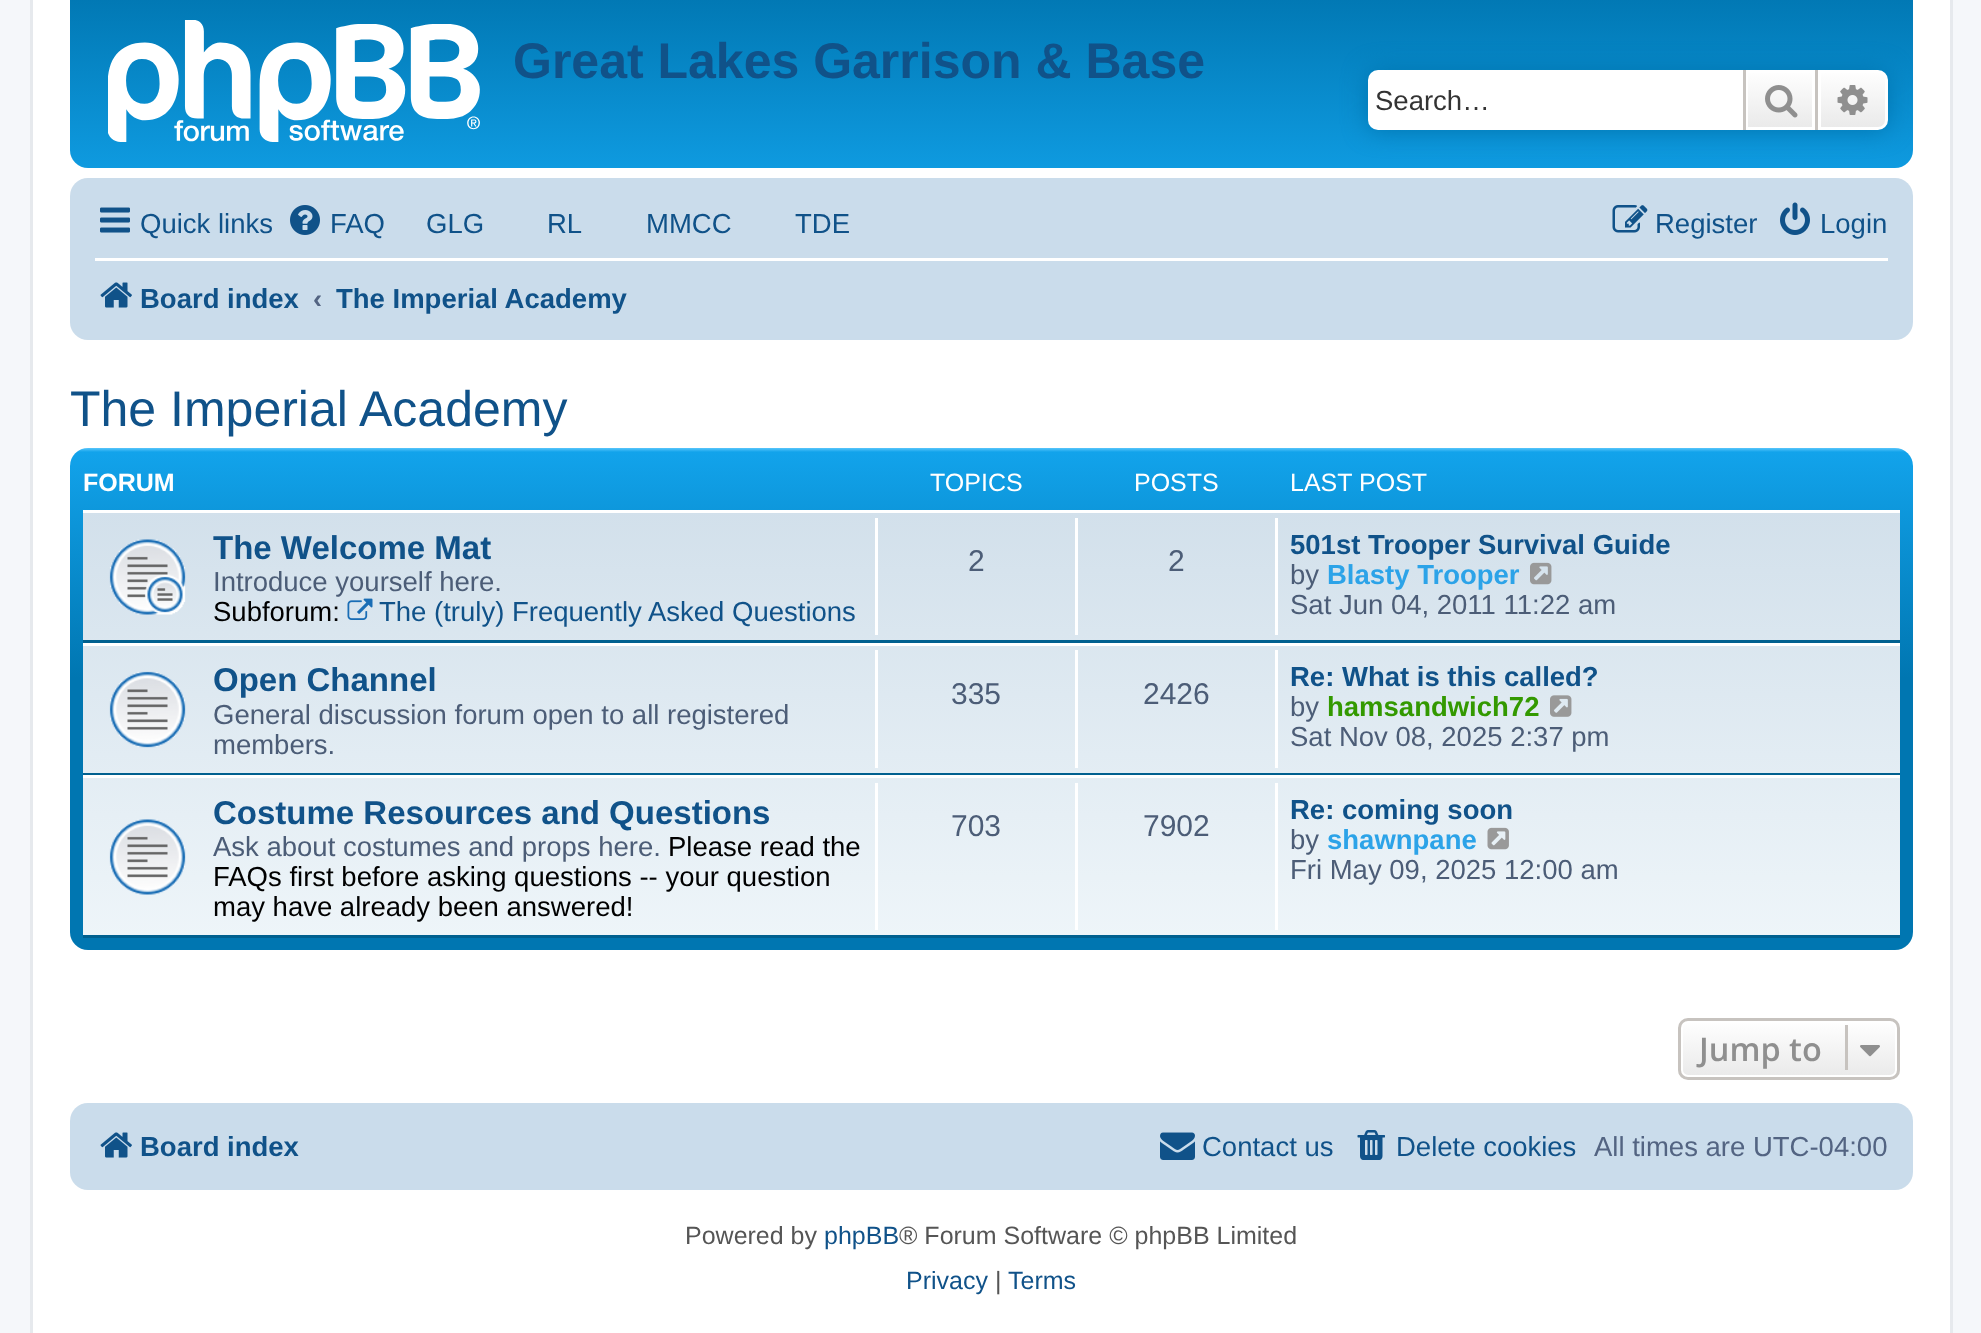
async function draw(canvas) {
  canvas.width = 1981
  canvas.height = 1333
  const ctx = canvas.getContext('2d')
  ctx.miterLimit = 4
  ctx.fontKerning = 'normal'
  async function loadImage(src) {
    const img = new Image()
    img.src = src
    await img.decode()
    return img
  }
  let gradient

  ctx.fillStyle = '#f5f7fa'
  ctx.fillRect(0, 0, 1981, 1333)
  ctx.fillStyle = '#fff'
  ctx.beginPath()
  ctx.rect(31.5, -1.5, 1920, 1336)
  ctx.fill()
  ctx.strokeStyle = '#e6e9ed'
  ctx.lineWidth = 3
  ctx.stroke()
  gradient = ctx.createLinearGradient(991, -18, 991, 212)
  gradient.addColorStop(0, '#6aceff')
  gradient.addColorStop(0.02, '#0076b1')
  gradient.addColorStop(1, '#12a3eb')
  ctx.fillStyle = gradient
  ctx.beginPath()
  ctx.roundRect(70, -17, 1843, 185, 18)
  ctx.fill()
  ctx.drawImage(await loadImage('image0.png'), 108, 20, 372, 122)
  ctx.font = 'bold 50px Liberation Sans'
  ctx.fillStyle = '#105289'
  ctx.fillText('Great Lakes Garrison & Base', 513, 78)
  ctx.fillStyle = '#0075b0'
  ctx.filter = 'blur(12.5px)'
  ctx.beginPath()
  ctx.roundRect(1368, 70, 520, 60, 10)
  ctx.fill()
  ctx.filter = 'none'
  ctx.fillStyle = '#fff'
  ctx.beginPath()
  ctx.roundRect(1368, 70, 375, 60, [10, 0, 0, 10])
  ctx.fill()
  ctx.font = '27.5px Liberation Sans'
  ctx.fillStyle = '#333'
  ctx.fillText('Search…', 1375, 110)
  gradient = ctx.createLinearGradient(1780, 70, 1780, 130)
  gradient.addColorStop(0, '#fff')
  gradient.addColorStop(1, '#e9e9e9')
  ctx.fillStyle = gradient
  ctx.fillRect(1748, 73, 64, 54)
  ctx.strokeStyle = '#fff'
  ctx.strokeRect(1746.5, 71.5, 67, 57)
  ctx.fillStyle = '#c7c3bf'
  ctx.fillRect(1815, 70, 3, 60)
  ctx.fillRect(1743, 70, 3, 60)
  ctx.drawImage(await loadImage('image1.png'), 1765, 85, 33, 33)
  gradient = ctx.createLinearGradient(1853, 70, 1853, 130)
  gradient.addColorStop(0, '#fff')
  gradient.addColorStop(1, '#e9e9e9')
  ctx.fillStyle = gradient
  ctx.beginPath()
  ctx.roundRect(1819.5, 71.5, 67, 57, [0, 8.5, 8.5, 0])
  ctx.fill()
  ctx.stroke()
  ctx.drawImage(await loadImage('image2.png'), 1837, 85, 31, 30)
  ctx.fillStyle = '#cadceb'
  ctx.beginPath()
  ctx.roundRect(70, 178, 1843, 162, 18)
  ctx.fill()
  ctx.drawImage(await loadImage('image3.png'), 100, 207, 30, 26)
  ctx.fillStyle = '#105289'
  ctx.fillText('Quick links', 140, 233)
  ctx.drawImage(await loadImage('image4.png'), 290, 205, 30, 30)
  ctx.fillText('FAQ', 330, 233)
  ctx.fillText('GLG', 426, 233)
  ctx.fillText('RL', 547, 233)
  ctx.fillText('MMCC', 646, 233)
  ctx.fillText('TDE', 795, 233)
  ctx.drawImage(await loadImage('image5.png'), 1612, 205, 36, 28)
  ctx.fillText('Register', 1655, 233)
  ctx.drawImage(await loadImage('image6.png'), 1780, 202, 30, 33)
  ctx.fillText('Login', 1820, 233)
  ctx.fillStyle = '#fff'
  ctx.fillRect(95, 258, 1793, 3)
  ctx.drawImage(await loadImage('image7.png'), 100, 282, 32, 26)
  ctx.font = 'bold 27.5px Liberation Sans'
  ctx.fillStyle = '#105289'
  ctx.fillText('Board index', 140, 308)
  ctx.fillStyle = '#536482'
  ctx.fillText('‹', 313, 308)
  ctx.fillStyle = '#105289'
  ctx.fillText('The Imperial Academy', 336, 308)
  ctx.font = '50px Liberation Sans'
  ctx.fillText('The Imperial Academy', 70, 426)
  gradient = ctx.createLinearGradient(991, 447, 991, 950)
  gradient.addColorStop(0, '#6aceff')
  gradient.addColorStop(0.01, '#12a3eb')
  gradient.addColorStop(0.46, '#0076b1')
  gradient.addColorStop(1, '#0076b1')
  ctx.fillStyle = gradient
  ctx.beginPath()
  ctx.roundRect(70, 448, 1843, 502, 18)
  ctx.fill()
  ctx.font = 'bold 25px Liberation Sans'
  ctx.fillStyle = '#fff'
  ctx.fillText('FORUM', 83, 491)
  ctx.font = '25px Liberation Sans'
  ctx.fillText('TOPICS', 930, 491)
  ctx.fillText('POSTS', 1134, 491)
  ctx.fillText('LAST POST', 1290, 491)
  gradient = ctx.createLinearGradient(991, 510, 991, 938)
  gradient.addColorStop(0, '#d2e0eb')
  gradient.addColorStop(1, '#eef5f9')
  ctx.fillStyle = gradient
  ctx.fillRect(83, 513, 1817, 422)
  ctx.fillStyle = '#fff'
  ctx.fillRect(83, 510, 1817, 3)
  ctx.fillStyle = '#00608f'
  ctx.fillRect(83, 640, 1817, 3)
  ctx.drawImage(await loadImage('image8.png'), 109, 539, 77, 76)
  ctx.font = 'bold 33px Liberation Sans'
  ctx.fillStyle = '#105289'
  ctx.fillText('The Welcome Mat', 213, 559)
  ctx.font = '27.5px Liberation Sans'
  ctx.fillStyle = '#4c5d77'
  ctx.fillText('Introduce yourself here.', 213, 591)
  ctx.fillStyle = '#000'
  ctx.fillText('Subforum:', 213, 621)
  ctx.drawImage(await loadImage('image9.png'), 347, 598, 26, 22)
  ctx.fillStyle = '#105289'
  ctx.fillText('The (truly) Frequently Asked Questions', 379, 621)
  ctx.fillStyle = '#fff'
  ctx.fillRect(875, 518, 3, 117)
  ctx.font = '30px Liberation Sans'
  ctx.fillStyle = '#4c5d77'
  ctx.fillText('2', 968, 571)
  ctx.fillStyle = '#fff'
  ctx.fillRect(1075, 518, 3, 117)
  ctx.fillStyle = '#4c5d77'
  ctx.fillText('2', 1168, 571)
  ctx.fillStyle = '#fff'
  ctx.fillRect(1275, 518, 3, 117)
  ctx.font = 'bold 27.5px Liberation Sans'
  ctx.fillStyle = '#105289'
  ctx.fillText('501st Trooper Survival Guide', 1290, 554)
  ctx.font = '27.5px Liberation Sans'
  ctx.fillStyle = '#4c5d77'
  ctx.fillText('by', 1290, 584)
  ctx.font = 'bold 27.5px Liberation Sans'
  ctx.fillStyle = '#2ca3e8'
  ctx.fillText('Blasty Trooper', 1327, 584)
  ctx.drawImage(await loadImage('image10.png'), 1530, 562, 22, 23)
  ctx.font = '27.5px Liberation Sans'
  ctx.fillStyle = '#4c5d77'
  ctx.fillText('Sat Jun 04, 2011 11:22 am', 1290, 614)
  ctx.fillStyle = '#fff'
  ctx.fillRect(83, 643, 1817, 3)
  ctx.fillStyle = '#00608f'
  ctx.fillRect(83, 773, 1817, 2)
  ctx.drawImage(await loadImage('image11.png'), 109, 671, 77, 77)
  ctx.font = 'bold 33px Liberation Sans'
  ctx.fillStyle = '#105289'
  ctx.fillText('Open Channel', 213, 691)
  ctx.font = '27.5px Liberation Sans'
  ctx.fillStyle = '#4c5d77'
  ctx.fillText('General discussion forum open to all registered', 213, 724)
  ctx.fillText('members.', 213, 754)
  ctx.fillStyle = '#fff'
  ctx.fillRect(875, 650, 3, 118)
  ctx.font = '30px Liberation Sans'
  ctx.fillStyle = '#4c5d77'
  ctx.fillText('335', 951, 704)
  ctx.fillStyle = '#fff'
  ctx.fillRect(1075, 650, 3, 118)
  ctx.fillStyle = '#4c5d77'
  ctx.fillText('2426', 1143, 704)
  ctx.fillStyle = '#fff'
  ctx.fillRect(1275, 650, 3, 118)
  ctx.font = 'bold 27.5px Liberation Sans'
  ctx.fillStyle = '#105289'
  ctx.fillText('Re: What is this called?', 1290, 686)
  ctx.font = '27.5px Liberation Sans'
  ctx.fillStyle = '#4c5d77'
  ctx.fillText('by', 1290, 716)
  ctx.font = 'bold 27.5px Liberation Sans'
  ctx.fillStyle = '#390'
  ctx.fillText('hamsandwich72', 1327, 716)
  ctx.drawImage(await loadImage('image12.png'), 1550, 695, 22, 22)
  ctx.font = '27.5px Liberation Sans'
  ctx.fillStyle = '#4c5d77'
  ctx.fillText('Sat Nov 08, 2025 2:37 pm', 1290, 746)
  ctx.fillStyle = '#fff'
  ctx.fillRect(83, 775, 1817, 3)
  ctx.fillStyle = '#00608f'
  ctx.fillRect(83, 935, 1817, 3)
  ctx.drawImage(await loadImage('image13.png'), 109, 819, 77, 76)
  ctx.font = 'bold 33px Liberation Sans'
  ctx.fillStyle = '#105289'
  ctx.fillText('Costume Resources and Questions', 213, 824)
  ctx.font = '27.5px Liberation Sans'
  ctx.fillStyle = '#4c5d77'
  ctx.fillText('Ask about costumes and props here.', 213, 856)
  ctx.fillStyle = '#000'
  ctx.fillText('Please read the', 668, 856)
  ctx.fillText('FAQs first before asking questions -- your question', 213, 886)
  ctx.fillText('may have already been answered!', 213, 916)
  ctx.fillStyle = '#fff'
  ctx.fillRect(875, 783, 3, 147)
  ctx.font = '30px Liberation Sans'
  ctx.fillStyle = '#4c5d77'
  ctx.fillText('703', 951, 836)
  ctx.fillStyle = '#fff'
  ctx.fillRect(1075, 783, 3, 147)
  ctx.fillStyle = '#4c5d77'
  ctx.fillText('7902', 1143, 836)
  ctx.fillStyle = '#fff'
  ctx.fillRect(1275, 783, 3, 147)
  ctx.font = 'bold 27.5px Liberation Sans'
  ctx.fillStyle = '#105289'
  ctx.fillText('Re: coming soon', 1290, 819)
  ctx.font = '27.5px Liberation Sans'
  ctx.fillStyle = '#4c5d77'
  ctx.fillText('by', 1290, 849)
  ctx.font = 'bold 27.5px Liberation Sans'
  ctx.fillStyle = '#2ca3e8'
  ctx.fillText('shawnpane', 1327, 849)
  ctx.drawImage(await loadImage('image14.png'), 1487, 827, 22, 23)
  ctx.font = '27.5px Liberation Sans'
  ctx.fillStyle = '#4c5d77'
  ctx.fillText('Fri May 09, 2025 12:00 am', 1290, 879)
  ctx.save()
  ctx.beginPath()
  ctx.roundRect(1678, 1018, 222, 62, 10)
  ctx.clip()
  gradient = ctx.createLinearGradient(1789, 1020, 1789, 1078)
  gradient.addColorStop(0, '#fff')
  gradient.addColorStop(1, '#e9e9e9')
  ctx.fillStyle = gradient
  ctx.fillRect(1678, 1020, 222, 58)
  ctx.restore()
  ctx.beginPath()
  ctx.roundRect(1681.5, 1021.5, 215, 55, 6.5)
  ctx.stroke()
  ctx.beginPath()
  ctx.roundRect(1679.5, 1019.5, 219, 59, 8.5)
  ctx.strokeStyle = '#c7c3bf'
  ctx.stroke()
  ctx.font = '600 32.5px Open Sans'
  ctx.fillStyle = '#8f8f8f'
  ctx.fillText('Jump to', 1699, 1061)
  ctx.fillStyle = '#c7c3bf'
  ctx.fillRect(1845, 1025, 3, 45)
  ctx.drawImage(await loadImage('image15.png'), 1860, 1045, 20, 12)
  ctx.fillStyle = '#cadceb'
  ctx.beginPath()
  ctx.roundRect(70, 1103, 1843, 87, 18)
  ctx.fill()
  ctx.drawImage(await loadImage('image7.png'), 100, 1132, 32, 26)
  ctx.font = 'bold 27.5px Liberation Sans'
  ctx.fillStyle = '#105289'
  ctx.fillText('Board index', 140, 1156)
  ctx.drawImage(await loadImage('image16.png'), 1160, 1132, 35, 28)
  ctx.font = '27.5px Liberation Sans'
  ctx.fillText('Contact us', 1202, 1156)
  ctx.drawImage(await loadImage('image17.png'), 1357, 1130, 28, 30)
  ctx.fillText('Delete cookies', 1396, 1156)
  ctx.fillStyle = '#536482'
  ctx.fillText('All times are UTC-04:00', 1594, 1156)
  ctx.font = '25px Liberation Sans'
  ctx.fillStyle = '#555'
  ctx.fillText('Powered by', 685, 1244)
  ctx.fillStyle = '#105289'
  ctx.fillText('phpBB', 824, 1244)
  ctx.fillStyle = '#555'
  ctx.fillText('® Forum Software © phpBB Limited', 899, 1244)
  ctx.fillStyle = '#105289'
  ctx.fillText('Privacy', 906, 1289)
  ctx.fillStyle = '#555'
  ctx.fillText('|', 995, 1289)
  ctx.fillStyle = '#105289'
  ctx.fillText('Terms', 1008, 1289)
}

draw(document.querySelector('canvas'))
